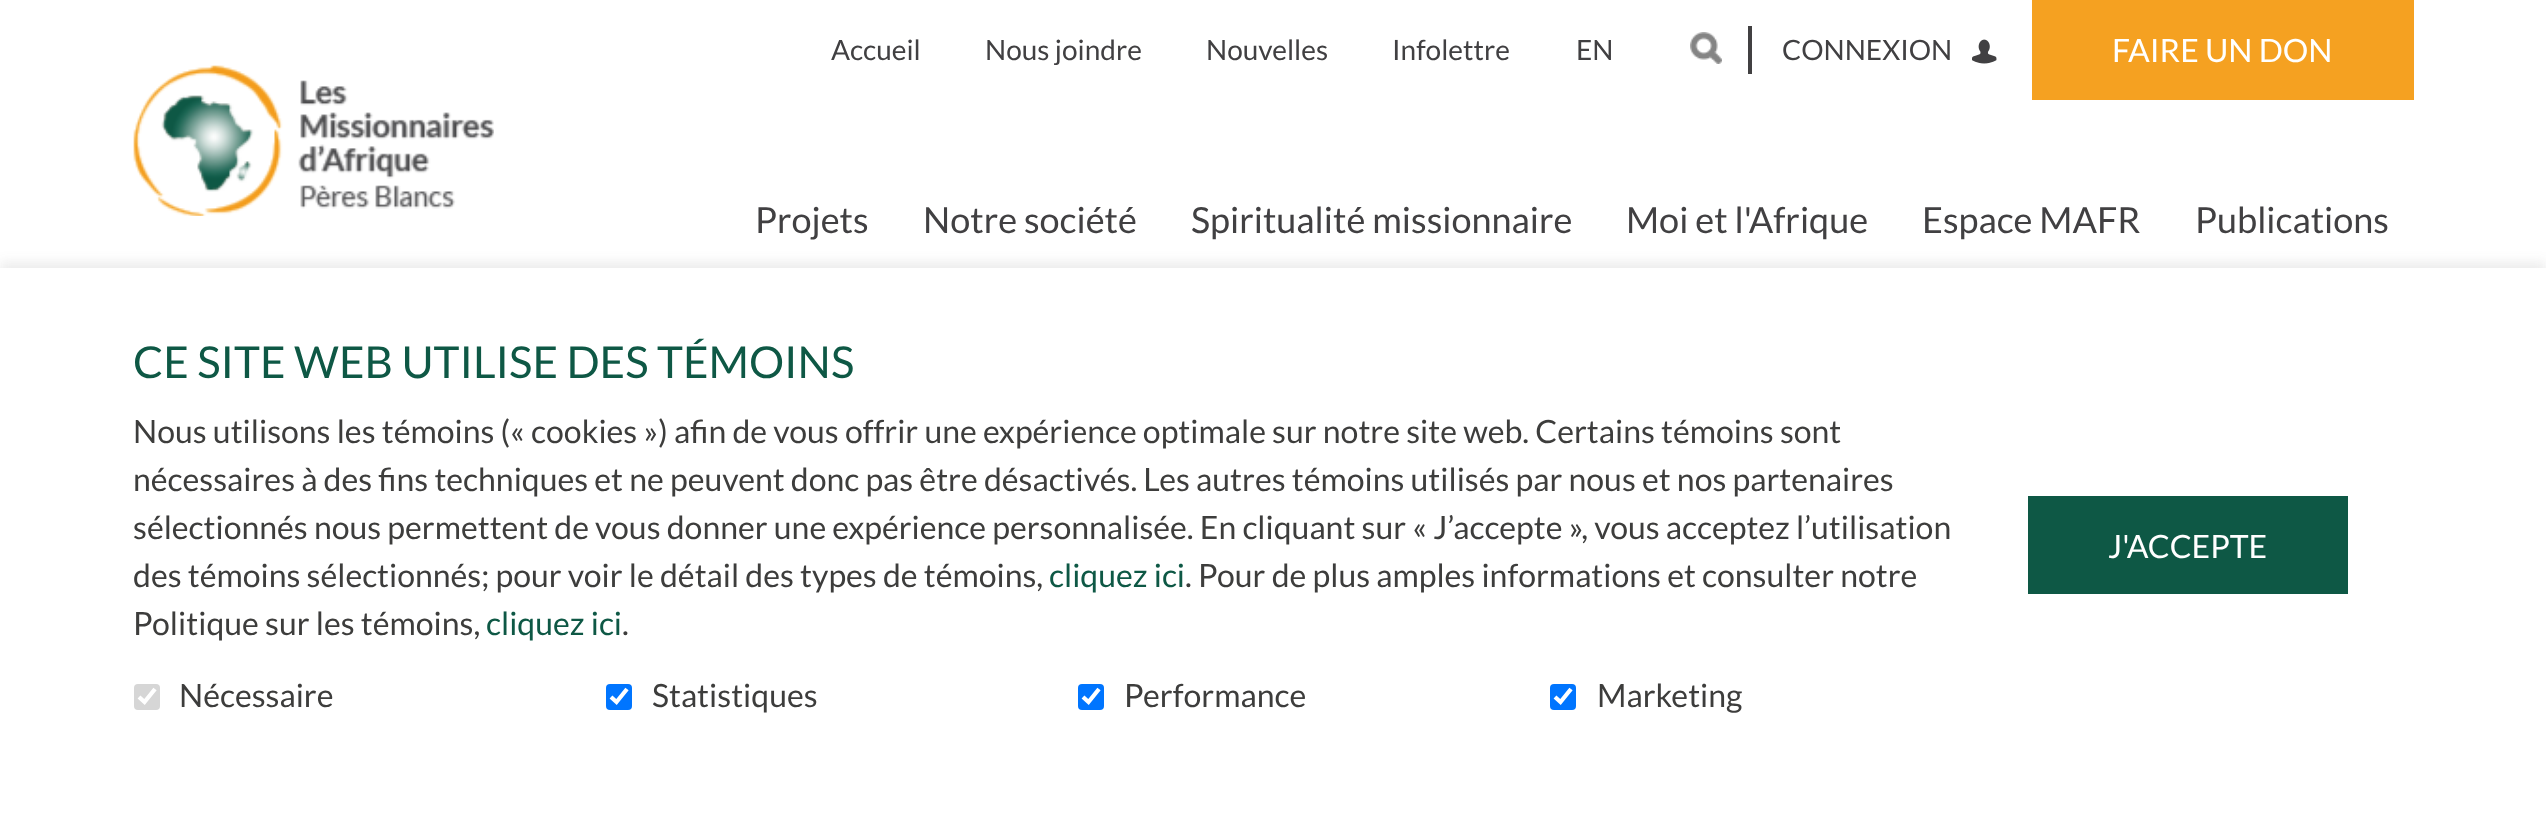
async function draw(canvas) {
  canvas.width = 2546
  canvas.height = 832
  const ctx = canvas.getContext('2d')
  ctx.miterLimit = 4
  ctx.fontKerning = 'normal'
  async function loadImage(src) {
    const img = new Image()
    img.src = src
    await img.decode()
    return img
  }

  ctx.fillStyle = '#fff'
  ctx.fillRect(0, 0, 2546, 832)
  ctx.drawImage(await loadImage('image0.png'), 133, 65, 361, 151)
  ctx.font = '28px Lato'
  ctx.fillStyle = '#414042'
  ctx.fillText('Accueil', 831, 60)
  ctx.fillText('Nous joindre', 985, 60)
  ctx.fillText('Nouvelles', 1206, 60)
  ctx.fillText('Infolettre', 1392, 60)
  ctx.fillText('EN', 1576, 60)
  ctx.drawImage(await loadImage('image1.png'), 1690, 32, 32, 32)
  ctx.fillRect(1748, 26, 4, 48)
  ctx.fillText('CONNEXION', 1782, 60)
  ctx.drawImage(await loadImage('image2.png'), 1972, 39, 25, 25)
  ctx.fillStyle = '#f5a121'
  ctx.fillRect(2032, 0, 382, 100)
  ctx.font = '32px Lato'
  ctx.fillStyle = '#fff'
  ctx.fillText('FAIRE UN DON', 2112, 62)
  ctx.font = '36px Lato'
  ctx.fillStyle = '#414042'
  ctx.fillText('Projets', 755, 233)
  ctx.fillText('Notre société', 923, 233)
  ctx.fillText('Spiritualité missionnaire', 1191, 233)
  ctx.fillText('Moi et l\'Afrique', 1626, 233)
  ctx.fillText('Espace MAFR', 1922, 233)
  ctx.fillText('Publications', 2195, 233)
  ctx.fillStyle = '#4140421a'
  ctx.filter = 'blur(6px)'
  ctx.beginPath()
  ctx.rect(0, 262, 2546, 564)
  ctx.fill()
  ctx.filter = 'none'
  ctx.fillStyle = '#fff'
  ctx.fillRect(0, 268, 2546, 564)
  ctx.font = '44px Lato'
  ctx.fillStyle = '#0e5845'
  ctx.fillText('CE SITE WEB UTILISE DES TÉMOINS', 133, 378)
  ctx.font = '32px Lato'
  ctx.fillStyle = '#3d3d3c'
  ctx.fillText('Nous utilisons les témoins (« cookies ») afin de vous offrir une expérience optimale sur notre site web. Certains témoins sont', 133, 443)
  ctx.fillText('nécessaires à des fins techniques et ne peuvent donc pas être désactivés. Les autres témoins utilisés par nous et nos partenaires', 133, 491)
  ctx.fillText('sélectionnés nous permettent de vous donner une expérience personnalisée. En cliquant sur « J’accepte », vous acceptez l’utilisation', 133, 539)
  ctx.fillText('des témoins sélectionnés; pour voir le détail des types de témoins,', 133, 587)
  ctx.fillStyle = '#0e5845'
  ctx.fillText('cliquez ici', 1049, 587)
  ctx.fillStyle = '#3d3d3c'
  ctx.fillText('. Pour de plus amples informations et consulter notre', 1185, 587)
  ctx.fillText('Politique sur les témoins,', 133, 635)
  ctx.fillStyle = '#0e5845'
  ctx.fillText('cliquez ici', 486, 635)
  ctx.fillStyle = '#3d3d3c'
  ctx.fillText('.', 622, 635)
  ctx.fillStyle = '#d6d6d6'
  ctx.beginPath()
  ctx.roundRect(134, 684, 26, 26, 4)
  ctx.fill()
  ctx.beginPath()
  ctx.moveTo(139, 697)
  ctx.lineTo(144.5, 702)
  ctx.lineTo(155, 689)
  ctx.strokeStyle = '#fff'
  ctx.lineWidth = 4.2
  ctx.stroke()
  ctx.fillStyle = '#3d3d3c'
  ctx.fillText('Nécessaire', 179, 707)
  ctx.fillStyle = '#0075ff'
  ctx.beginPath()
  ctx.roundRect(606, 684, 26, 26, 4)
  ctx.fill()
  ctx.beginPath()
  ctx.moveTo(611, 697)
  ctx.lineTo(616.5, 702)
  ctx.lineTo(627, 689)
  ctx.stroke()
  ctx.fillStyle = '#3d3d3c'
  ctx.fillText('Statistiques', 652, 707)
  ctx.fillStyle = '#0075ff'
  ctx.beginPath()
  ctx.roundRect(1078, 684, 26, 26, 4)
  ctx.fill()
  ctx.beginPath()
  ctx.moveTo(1083, 697)
  ctx.lineTo(1088.5, 702)
  ctx.lineTo(1099, 689)
  ctx.stroke()
  ctx.fillStyle = '#3d3d3c'
  ctx.fillText('Performance', 1124, 707)
  ctx.fillStyle = '#0075ff'
  ctx.beginPath()
  ctx.roundRect(1550, 684, 26, 26, 4)
  ctx.fill()
  ctx.beginPath()
  ctx.moveTo(1555, 697)
  ctx.lineTo(1560.5, 702)
  ctx.lineTo(1571, 689)
  ctx.stroke()
  ctx.fillStyle = '#3d3d3c'
  ctx.fillText('Marketing', 1597, 707)
  ctx.fillStyle = '#0e5845'
  ctx.fillRect(2028, 496, 320, 98)
  ctx.fillStyle = '#fff'
  ctx.fillText('J\'ACCEPTE', 2108, 558)
}

draw(document.querySelector('canvas'))
